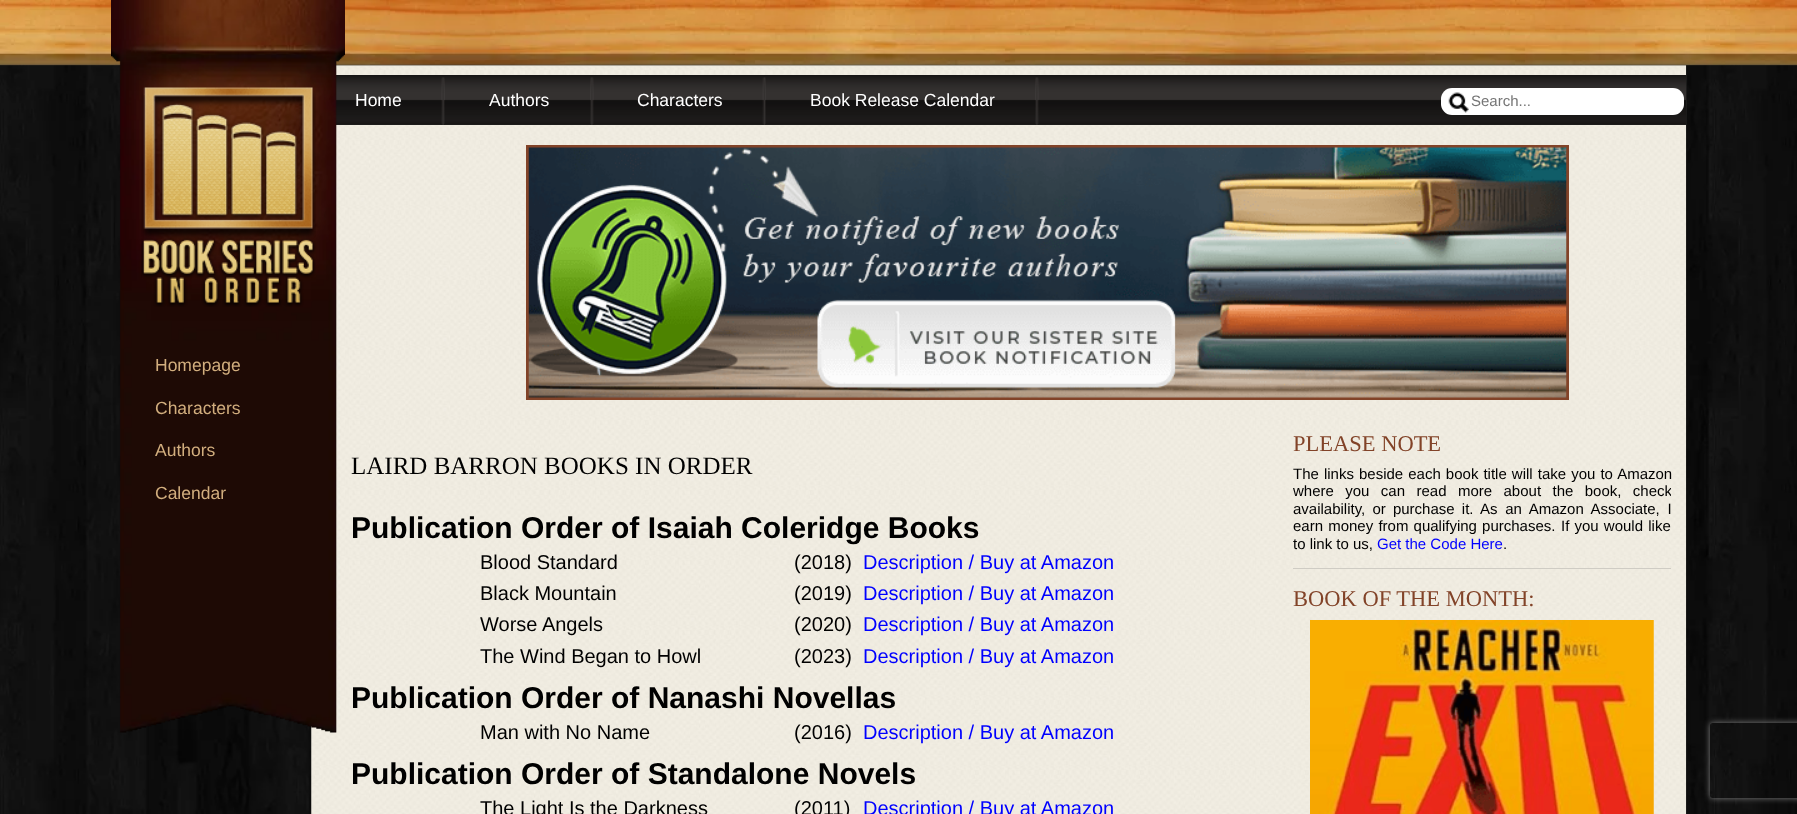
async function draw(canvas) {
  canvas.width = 1797
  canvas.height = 814
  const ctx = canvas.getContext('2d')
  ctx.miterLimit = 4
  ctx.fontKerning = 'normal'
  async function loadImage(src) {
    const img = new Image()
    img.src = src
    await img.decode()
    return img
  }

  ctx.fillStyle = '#fff'
  ctx.fillRect(0, 0, 1797, 814)
  ctx.drawImage(await loadImage('image0.png'), 0, 64, 1797, 750)
  ctx.drawImage(await loadImage('image4.png'), 311, 65, 1376, 749)
  ctx.fillStyle = '#b4b1a9'
  ctx.fillRect(336, 65, 1350, 1)
  ctx.drawImage(await loadImage('image1.png'), 0, 0, 1797, 66)
  ctx.drawImage(await loadImage('image5.png'), 336, 75, 1350, 50)
  ctx.drawImage(await loadImage('image2.png'), 111, 0, 234, 733)
  ctx.drawImage(await loadImage('image3.png'), 141, 87, 175, 220)
  ctx.font = '17.5px Liberation Sans'
  ctx.fillStyle = '#d2ae7e'
  ctx.fillText('Homepage', 155, 371)
  ctx.fillText('Characters', 155, 414)
  ctx.fillText('Authors', 155, 456)
  ctx.fillText('Calendar', 155, 499)
  ctx.drawImage(await loadImage('image6.png'), 441, 77, 4, 48)
  ctx.fillStyle = '#fff'
  ctx.fillText('Home', 355, 106)
  ctx.drawImage(await loadImage('image7.png'), 590, 77, 4, 48)
  ctx.fillText('Authors', 489, 106)
  ctx.drawImage(await loadImage('image8.png'), 762, 77, 4, 48)
  ctx.fillText('Characters', 637, 106)
  ctx.drawImage(await loadImage('image7.png'), 1035, 77, 4, 48)
  ctx.fillText('Book Release Calendar', 810, 106)
  ctx.beginPath()
  ctx.roundRect(1441, 88, 243, 27, 11)
  ctx.fill()
  ctx.drawImage(await loadImage('image9.png'), 1448, 92, 21, 21)
  ctx.font = '15px Liberation Sans'
  ctx.fillStyle = '#757575'
  ctx.fillText('Search...', 1471, 106)
  ctx.strokeStyle = '#824328'
  ctx.lineWidth = 3
  ctx.strokeRect(527.5, 146.5, 1040, 252)
  ctx.drawImage(await loadImage('image10.png'), 528, 147, 1039, 251)
  ctx.font = '25px Liberation Serif'
  ctx.fillStyle = '#000'
  ctx.fillText('LAIRD BARRON BOOKS IN ORDER', 351, 474)
  ctx.font = 'bold 30px Liberation Sans'
  ctx.fillText('Publication Order of Isaiah Coleridge Books', 351, 538)
  ctx.font = '20px Liberation Sans'
  ctx.fillText('Blood Standard', 480, 569)
  ctx.fillText('(2018)', 794, 569)
  ctx.fillStyle = '#00f'
  ctx.fillText('Description / Buy at Amazon', 863, 569)
  ctx.fillStyle = '#000'
  ctx.fillText('Black Mountain', 480, 600)
  ctx.fillText('(2019)', 794, 600)
  ctx.fillStyle = '#00f'
  ctx.fillText('Description / Buy at Amazon', 863, 600)
  ctx.fillStyle = '#000'
  ctx.fillText('Worse Angels', 480, 631)
  ctx.fillText('(2020)', 794, 631)
  ctx.fillStyle = '#00f'
  ctx.fillText('Description / Buy at Amazon', 863, 631)
  ctx.fillStyle = '#000'
  ctx.fillText('The Wind Began to Howl', 480, 663)
  ctx.fillText('(2023)', 794, 663)
  ctx.fillStyle = '#00f'
  ctx.fillText('Description / Buy at Amazon', 863, 663)
  ctx.font = 'bold 30px Liberation Sans'
  ctx.fillStyle = '#000'
  ctx.fillText('Publication Order of Nanashi Novellas', 351, 708)
  ctx.font = '20px Liberation Sans'
  ctx.fillText('Man with No Name', 480, 739)
  ctx.fillText('(2016)', 794, 739)
  ctx.fillStyle = '#00f'
  ctx.fillText('Description / Buy at Amazon', 863, 739)
  ctx.font = 'bold 30px Liberation Sans'
  ctx.fillStyle = '#000'
  ctx.fillText('Publication Order of Standalone Novels', 351, 784)
  ctx.font = '20px Liberation Sans'
  ctx.fillText('The Light Is the Darkness', 480, 815)
  ctx.fillText('(2011)', 794, 815)
  ctx.fillStyle = '#00f'
  ctx.fillText('Description / Buy at Amazon', 863, 815)
  ctx.fillStyle = '#cfccc4'
  ctx.fillRect(1293, 568, 378, 1)
  ctx.font = '22.5px Liberation Serif'
  ctx.fillStyle = '#824328'
  ctx.fillText('PLEASE NOTE', 1293, 451)
  ctx.wordSpacing = '0.9px'
  ctx.font = '15px Liberation Sans'
  ctx.fillStyle = '#000'
  ctx.fillText('The links beside each book title will take you to Amazon', 1293, 479)
  ctx.save()
  ctx.beginPath()
  ctx.rect(1293, 423, 378, 145)
  ctx.clip()
  ctx.wordSpacing = '7.25px'
  ctx.fillText('where you can read more about the book, check', 1293, 496)
  ctx.restore()
  ctx.wordSpacing = '3px'
  ctx.fillText('availability, or purchase it.', 1293, 514)
  ctx.wordSpacing = '3.5px'
  ctx.fillText('As an Amazon Associate, I', 1480, 514)
  ctx.wordSpacing = '1px'
  ctx.fillText('earn money from qualifying purchases.', 1293, 531)
  ctx.fillText('If you would like', 1561, 531)
  ctx.wordSpacing = '0px'
  ctx.fillText('to link to us,', 1293, 549)
  ctx.fillStyle = '#00f'
  ctx.fillText('Get the Code Here', 1377, 549)
  ctx.fillStyle = '#000'
  ctx.fillText('.', 1503, 549)
  ctx.font = '22.5px Liberation Serif'
  ctx.fillStyle = '#824328'
  ctx.fillText('BOOK OF THE MONTH:', 1293, 606)
  ctx.drawImage(await loadImage('image11.png'), 1310, 620, 344, 194)
  ctx.save()
  ctx.beginPath()
  ctx.moveTo(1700, 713)
  ctx.lineTo(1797, 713)
  ctx.lineTo(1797, 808)
  ctx.lineTo(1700, 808)
  ctx.closePath()
  ctx.moveTo(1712.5, 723)
  ctx.lineTo(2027.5, 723)
  ctx.bezierCurveTo(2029, 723, 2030, 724, 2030, 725.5)
  ctx.lineTo(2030, 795.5)
  ctx.bezierCurveTo(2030, 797, 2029, 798, 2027.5, 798)
  ctx.lineTo(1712.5, 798)
  ctx.bezierCurveTo(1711, 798, 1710, 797, 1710, 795.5)
  ctx.lineTo(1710, 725.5)
  ctx.bezierCurveTo(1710, 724, 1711, 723, 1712.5, 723)
  ctx.closePath()
  ctx.clip('evenodd')
  ctx.fillStyle = '#808080'
  ctx.filter = 'blur(3px)'
  ctx.beginPath()
  ctx.roundRect(1710, 723, 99, 75, 2.5)
  ctx.fill()
  ctx.filter = 'none'
  ctx.restore()
}

draw(document.querySelector('canvas'))
